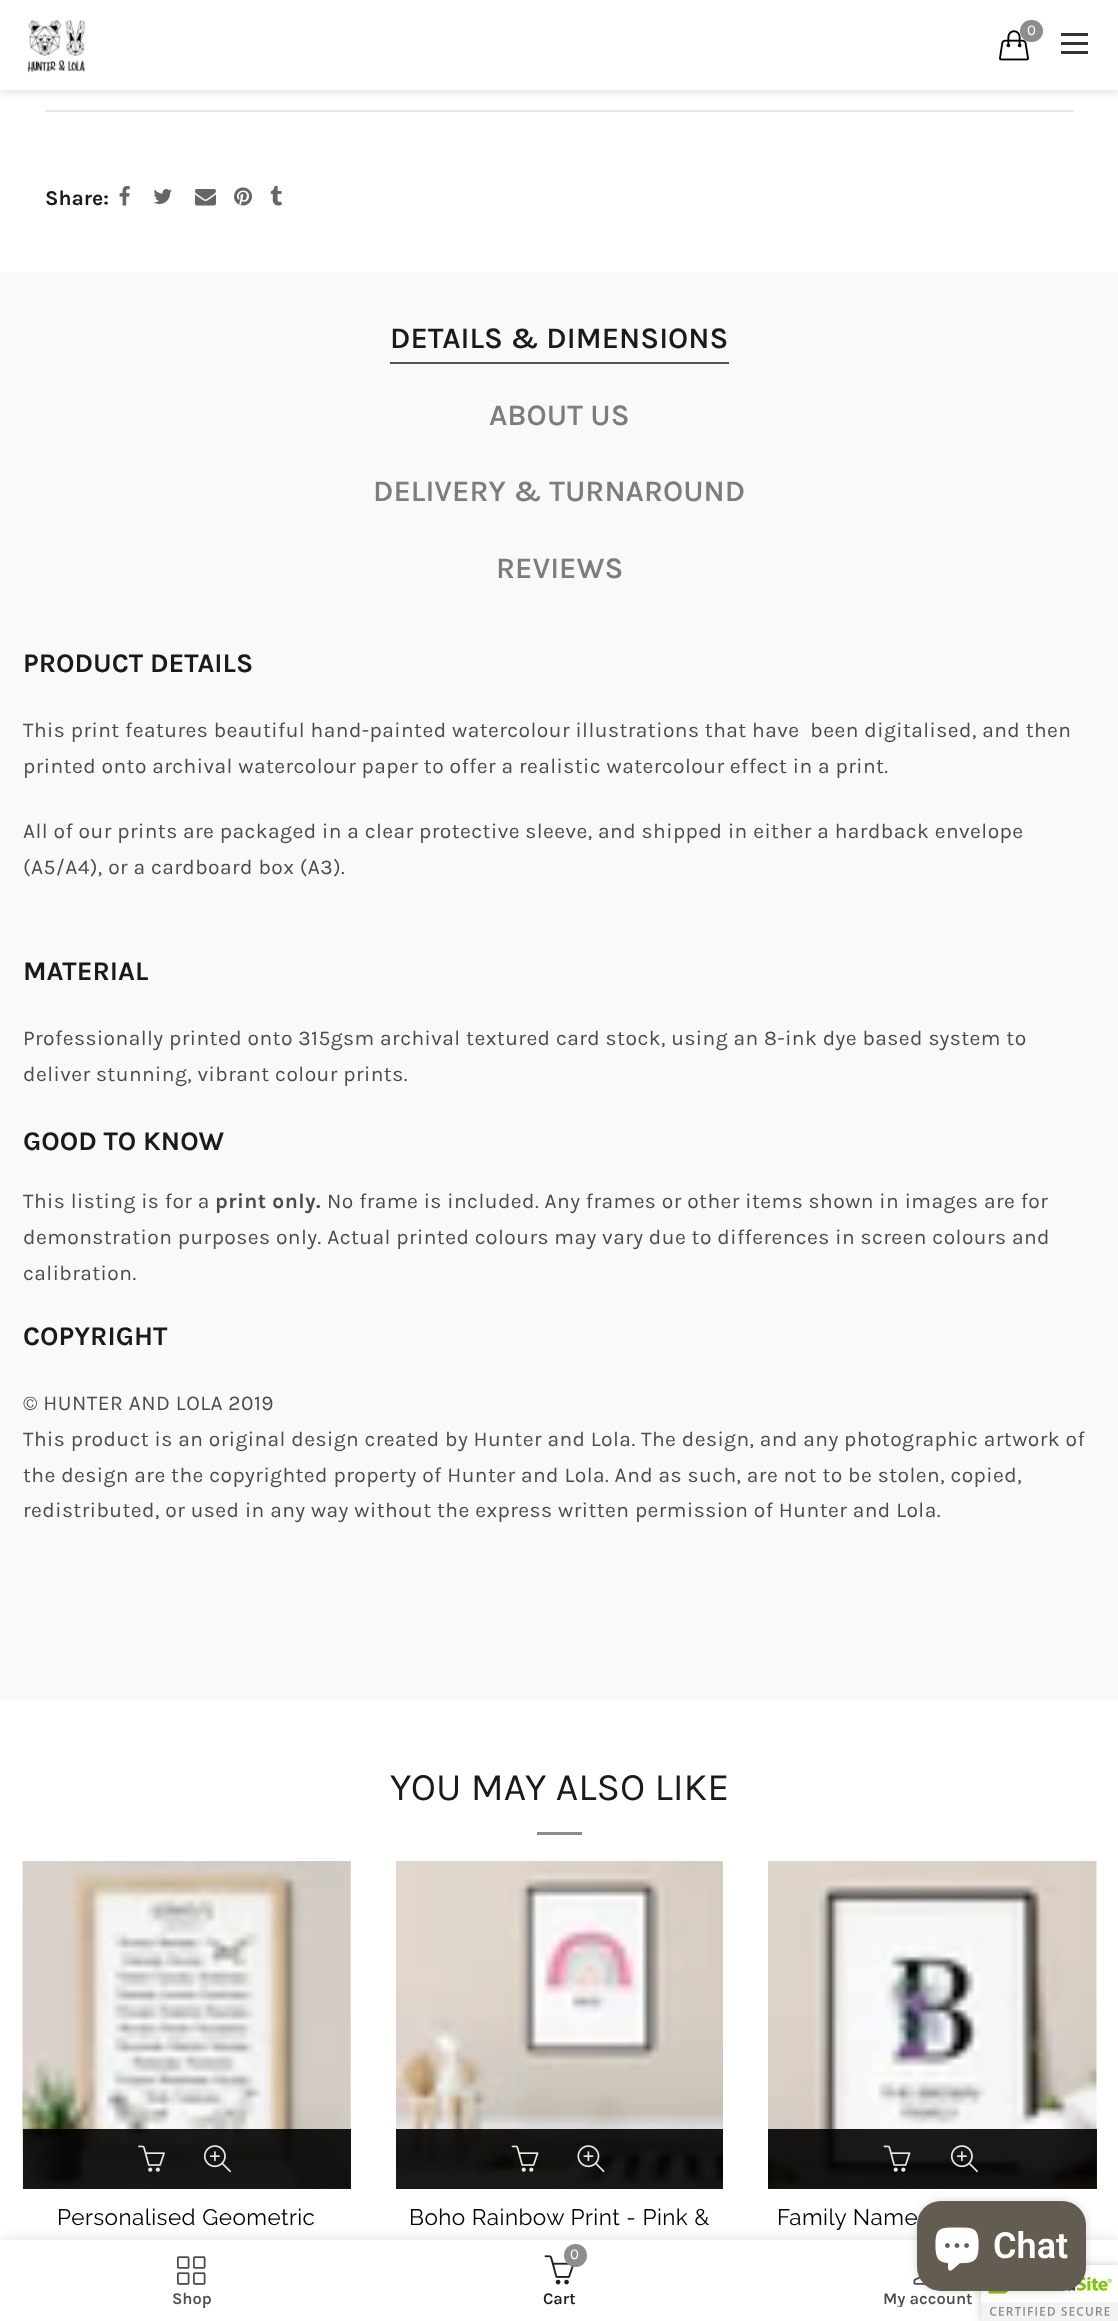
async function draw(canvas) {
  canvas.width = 1118
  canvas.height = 2321
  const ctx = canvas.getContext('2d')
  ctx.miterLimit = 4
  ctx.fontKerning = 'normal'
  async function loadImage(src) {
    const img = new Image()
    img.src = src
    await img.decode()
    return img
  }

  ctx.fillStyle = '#fff'
  ctx.fillRect(0, 0, 1118, 2321)
  ctx.fillStyle = '#bebebe80'
  ctx.filter = 'blur(4px)'
  ctx.beginPath()
  ctx.rect(0, 2, 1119, 90)
  ctx.fill()
  ctx.filter = 'none'
  ctx.fillStyle = '#fff'
  ctx.fillRect(0, 0, 1118, 90)
  ctx.drawImage(await loadImage('image0.png'), 27, 19, 59, 54)
  ctx.drawImage(await loadImage('image1.png'), 999, 30, 30, 31)
  ctx.fillStyle = '#8d8d8d'
  ctx.beginPath()
  ctx.roundRect(1020, 20, 23, 22, 11)
  ctx.fill()
  ctx.font = '15px Karla'
  ctx.fillStyle = '#fff'
  ctx.fillText('0', 1027, 35)
  ctx.fillStyle = '#333'
  ctx.fillRect(1061, 42, 27, 3)
  ctx.fillRect(1061, 33, 27, 3)
  ctx.fillRect(1061, 51, 27, 3)
  ctx.fillStyle = '#e8e8e8'
  ctx.fillRect(45, 110, 1029, 2)
  ctx.font = 'bold 21px Karla'
  ctx.fillStyle = '#1b1919'
  ctx.fillText('Share:', 45, 205)
  ctx.drawImage(await loadImage('image2.png'), 119, 186, 11, 20)
  ctx.drawImage(await loadImage('image3.png'), 153, 189, 19, 15)
  ctx.drawImage(await loadImage('image4.png'), 195, 189, 21, 17)
  ctx.drawImage(await loadImage('image5.png'), 234, 187, 18, 19)
  ctx.drawImage(await loadImage('image6.png'), 270, 186, 12, 20)
  ctx.fillStyle = '#f9f9f9'
  ctx.fillRect(0, 272, 1118, 1429)
  ctx.fillStyle = '#545454'
  ctx.fillRect(390, 362, 339, 2)
  ctx.font = '600 30px Karla'
  ctx.fillStyle = '#1b1919'
  ctx.fillText('DETAILS & DIMENSIONS', 390, 348)
  ctx.fillStyle = '#7d7d7d'
  ctx.fillText('ABOUT US', 489, 425)
  ctx.fillText('DELIVERY & TURNAROUND', 373, 501)
  ctx.fillText('REVIEWS', 496, 578)
  ctx.font = 'bold 27px Karla'
  ctx.fillStyle = '#1b1919'
  ctx.fillText('PRODUCT DETAILS', 23, 672)
  ctx.letterSpacing = '0.45px'
  ctx.font = '21px Karla'
  ctx.fillStyle = '#4c4c4c'
  ctx.fillText('This print features beautiful hand-painted watercolour illustrations that have  been digitalised, and then', 23, 737)
  ctx.fillText('printed onto archival watercolour paper to offer a realistic watercolour effect in a print.', 23, 773)
  ctx.fillText('All of our prints are packaged in a clear protective sleeve, and shipped in either a hardback envelope', 23, 838)
  ctx.fillText('(A5/A4), or a cardboard box (A3).', 23, 874)
  ctx.letterSpacing = '0px'
  ctx.font = 'bold 27px Karla'
  ctx.fillStyle = '#1b1919'
  ctx.fillText('MATERIAL', 23, 980)
  ctx.letterSpacing = '0.45px'
  ctx.font = '21px Karla'
  ctx.fillStyle = '#4c4c4c'
  ctx.fillText('Professionally printed onto 315gsm archival textured card stock, using an 8-ink dye based system to', 23, 1045)
  ctx.fillText('deliver stunning, vibrant colour prints.', 23, 1081)
  ctx.letterSpacing = '0px'
  ctx.font = 'bold 27px Karla'
  ctx.fillStyle = '#1b1919'
  ctx.fillText('GOOD TO KNOW', 23, 1150)
  ctx.letterSpacing = '0.45px'
  ctx.font = '21px Karla'
  ctx.fillStyle = '#4c4c4c'
  ctx.fillText('This listing is for a', 23, 1208)
  ctx.font = 'bold 21px Karla'
  ctx.fillText('print only.', 215, 1208)
  ctx.font = '21px Karla'
  ctx.fillText('No frame is included. Any frames or other items shown in images are for', 327, 1208)
  ctx.fillText('demonstration purposes only. Actual printed colours may vary due to differences in screen colours and', 23, 1244)
  ctx.fillText('calibration.', 23, 1280)
  ctx.letterSpacing = '0px'
  ctx.font = 'bold 27px Karla'
  ctx.fillStyle = '#1b1919'
  ctx.fillText('COPYRIGHT', 23, 1345)
  ctx.letterSpacing = '0.45px'
  ctx.font = '21px Karla'
  ctx.fillStyle = '#4c4c4c'
  ctx.fillText('© HUNTER AND LOLA 2019', 23, 1410)
  ctx.fillText('This product is an original design created by Hunter and Lola. The design, and any photographic artwork of', 23, 1446)
  ctx.fillText('the design are the copyrighted property of Hunter and Lola. And as such, are not to be stolen, copied,', 23, 1482)
  ctx.fillText('redistributed, or used in any way without the express written permission of Hunter and Lola.', 23, 1517)
  ctx.letterSpacing = '0px'
  ctx.font = '39px Karla'
  ctx.fillStyle = '#1b1919'
  ctx.fillText('YOU MAY ALSO LIKE', 390, 1800)
  ctx.fillStyle = '#8d8d8d'
  ctx.fillRect(537, 1832, 45, 3)
  ctx.drawImage(await loadImage('image7.png'), 22, 1861, 329, 327)
  ctx.fillStyle = '#000000e6'
  ctx.fillRect(23, 2129, 328, 60)
  ctx.drawImage(await loadImage('image8.png'), 138, 2145, 27, 27)
  ctx.drawImage(await loadImage('image9.png'), 203, 2145, 28, 28)
  ctx.letterSpacing = '0.45px'
  ctx.font = '22.5px Raleway'
  ctx.fillStyle = '#000'
  ctx.fillText('Personalised Geometric', 57, 2225)
  ctx.drawImage(await loadImage('image10.png'), 396, 1861, 327, 327)
  ctx.fillStyle = '#000000e6'
  ctx.fillRect(396, 2129, 327, 60)
  ctx.drawImage(await loadImage('image11.png'), 511, 2145, 28, 27)
  ctx.drawImage(await loadImage('image12.png'), 577, 2145, 28, 28)
  ctx.fillStyle = '#000'
  ctx.fillText('Boho Rainbow Print - Pink &', 409, 2225)
  ctx.drawImage(await loadImage('image13.png'), 768, 1861, 329, 327)
  ctx.fillStyle = '#000000e6'
  ctx.fillRect(768, 2129, 329, 60)
  ctx.drawImage(await loadImage('image14.png'), 883, 2145, 28, 27)
  ctx.drawImage(await loadImage('image15.png'), 950, 2145, 28, 28)
  ctx.fillStyle = '#000'
  ctx.fillText('Family Name', 777, 2225)
  ctx.fillStyle = '#0000001f'
  ctx.filter = 'blur(7px)'
  ctx.beginPath()
  ctx.rect(0, 2240, 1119, 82)
  ctx.fill()
  ctx.filter = 'none'
  ctx.fillStyle = '#fff'
  ctx.fillRect(0, 2240, 1118, 81)
  ctx.drawImage(await loadImage('image19.png'), 913, 2276, 13, 9)
  ctx.fillStyle = '#00000033'
  ctx.filter = 'blur(4px)'
  ctx.beginPath()
  ctx.roundRect(981, 2265, 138, 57, 3)
  ctx.fill()
  ctx.filter = 'none'
  ctx.fillStyle = '#fff'
  ctx.fillRect(1116, 2265, 2, 1)
  ctx.drawImage(await loadImage('image20.png'), 981, 2265, 137, 56)
  ctx.fillStyle = '#00000026'
  ctx.filter = 'blur(4px)'
  ctx.beginPath()
  ctx.roundRect(917, 2201, 169, 90, 24)
  ctx.fill()
  ctx.filter = 'none'
  ctx.fillStyle = '#635c51'
  ctx.beginPath()
  ctx.roundRect(917, 2201, 169, 90, 24)
  ctx.fill()
  ctx.drawImage(await loadImage('image16.png'), 935, 2227, 44, 44)
  ctx.letterSpacing = '0px'
  ctx.font = '600 36px Roboto'
  ctx.fillStyle = '#fff'
  ctx.fillText('Chat', 993, 2258)
  ctx.drawImage(await loadImage('image17.png'), 177, 2256, 29, 29)
  ctx.font = '600 16.5px Karla'
  ctx.fillStyle = '#4c4c4c'
  ctx.fillText('Shop', 172, 2304)
  ctx.drawImage(await loadImage('image18.png'), 544, 2255, 30, 30)
  ctx.fillStyle = '#8d8d8d'
  ctx.beginPath()
  ctx.arc(575.5, 2255.5, 11.5, 0, 2 * Math.PI)
  ctx.fill()
  ctx.font = '15px Karla'
  ctx.fillStyle = '#fff'
  ctx.fillText('0', 570, 2259)
  ctx.font = '600 16.5px Karla'
  ctx.fillStyle = '#202020'
  ctx.fillText('Cart', 543, 2304)
  ctx.save()
  ctx.beginPath()
  ctx.rect(759, 2291, 338, 16)
  ctx.clip()
  ctx.fillStyle = '#4c4c4c'
  ctx.fillText('My account', 883, 2304)
  ctx.restore()
}

draw(document.querySelector('canvas'))
